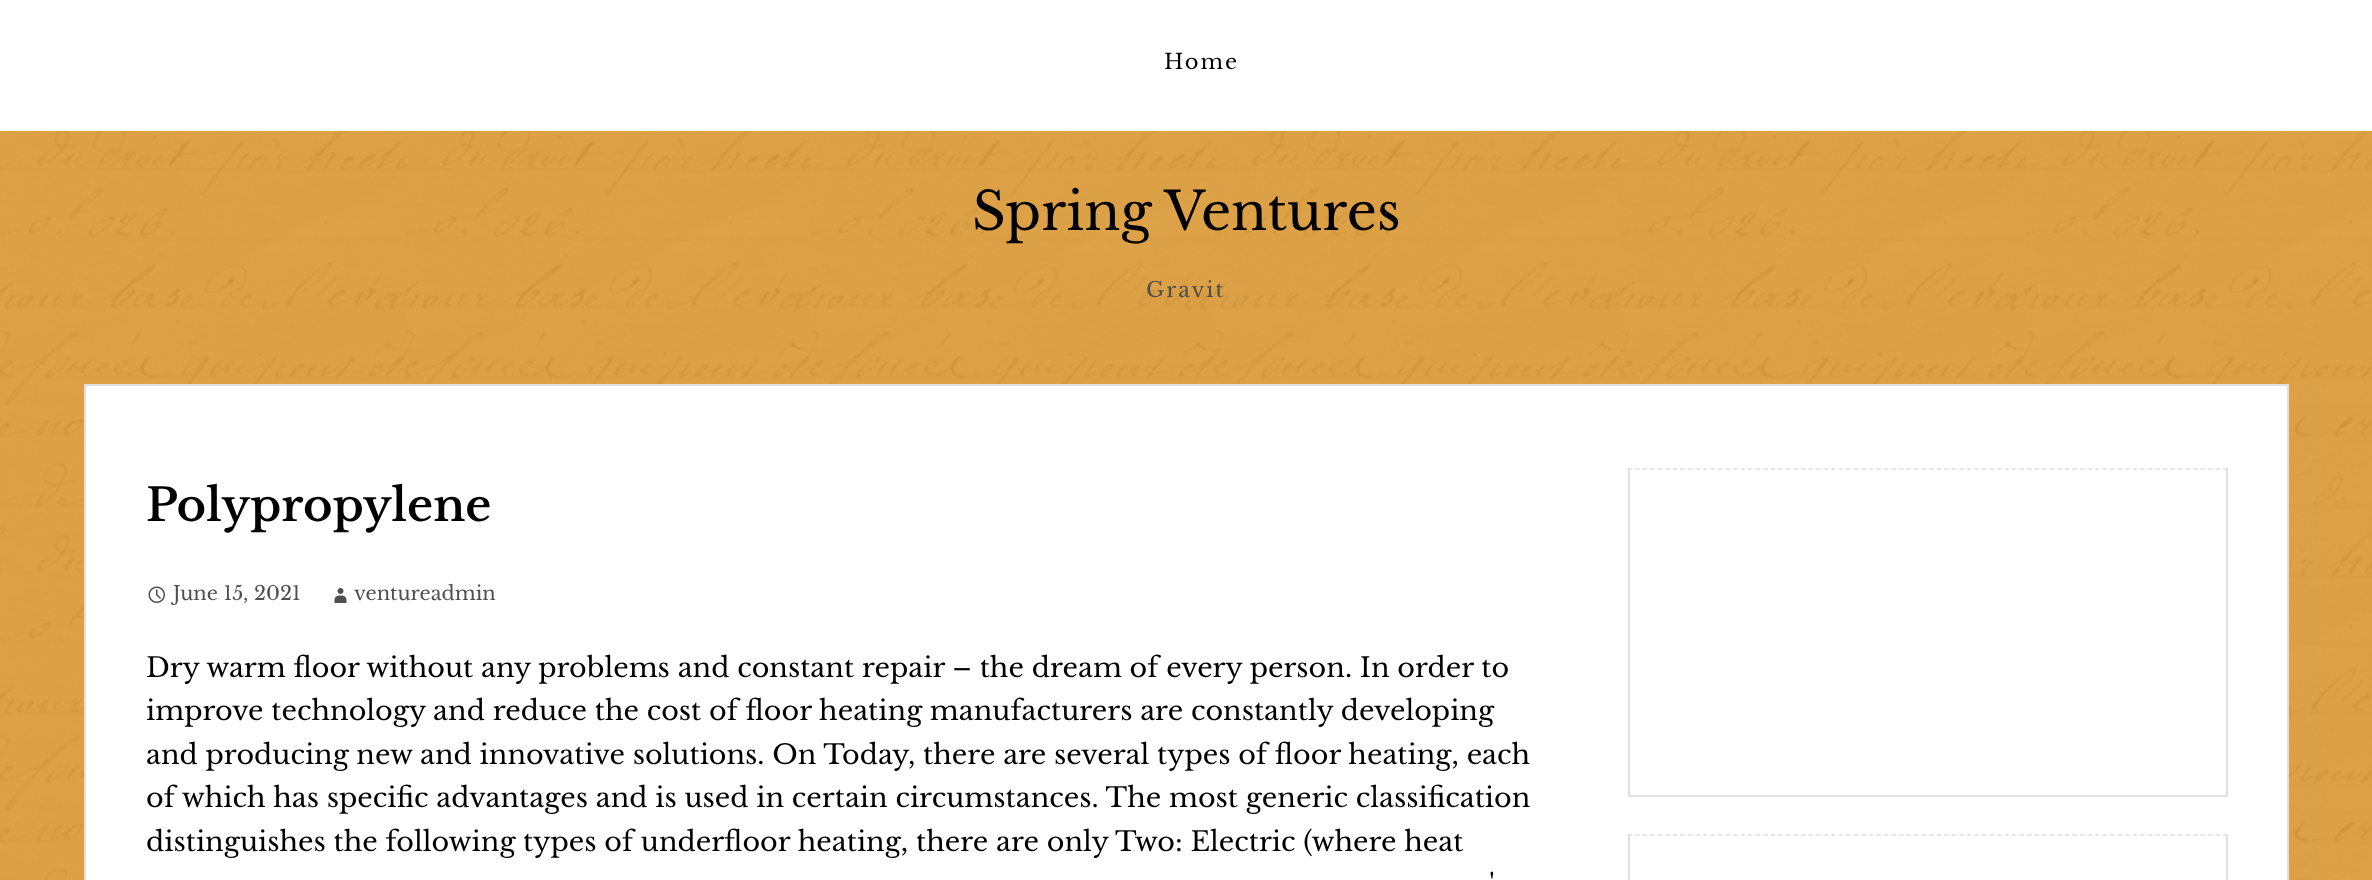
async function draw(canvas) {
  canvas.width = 2372
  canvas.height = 880
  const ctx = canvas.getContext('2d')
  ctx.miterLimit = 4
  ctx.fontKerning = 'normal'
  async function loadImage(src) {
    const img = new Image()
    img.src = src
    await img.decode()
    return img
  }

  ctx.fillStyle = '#d93'
  ctx.fillRect(0, 0, 2372, 880)
  ctx.drawImage(await loadImage('image0.png'), 0, 131, 2372, 749)
  ctx.fillStyle = '#fff'
  ctx.fillRect(0, 0, 2372, 131)
  ctx.letterSpacing = '2px'
  ctx.font = '21px Libre Baskerville'
  ctx.fillStyle = '#000'
  ctx.fillText('Home', 1164, 69)
  ctx.letterSpacing = '0px'
  ctx.font = '52.5px Libre Baskerville'
  ctx.fillText('Spring Ventures', 972, 230)
  ctx.letterSpacing = '2px'
  ctx.font = '21px Libre Baskerville'
  ctx.fillStyle = '#4f4f4f'
  ctx.fillText('Gravit', 1146, 297)
  ctx.fillStyle = '#fff'
  ctx.beginPath()
  ctx.rect(85, 385, 2203, 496)
  ctx.fill()
  ctx.strokeStyle = '#e0e0e0'
  ctx.lineWidth = 2
  ctx.stroke()
  ctx.letterSpacing = '0px'
  ctx.font = '600 45px Libre Baskerville'
  ctx.fillStyle = '#000'
  ctx.fillText('Polypropylene', 146, 521)
  ctx.drawImage(await loadImage('image1.png'), 148, 586, 17, 17)
  ctx.font = '19.5px Libre Baskerville'
  ctx.fillStyle = '#4f4f4f'
  ctx.fillText('June 15, 2021', 173, 600)
  ctx.drawImage(await loadImage('image2.png'), 334, 588, 13, 15)
  ctx.fillText('ventureadmin', 354, 600)
  ctx.font = '27px Libre Baskerville'
  ctx.fillStyle = '#000'
  ctx.fillText('Dry warm floor without any problems and constant repair – the dream of every person. In order to', 146, 677)
  ctx.fillText('improve technology and reduce the cost of floor heating manufacturers are constantly developing', 146, 720)
  ctx.fillText('and producing new and innovative solutions. On Today, there are several types of floor heating, each', 146, 764)
  ctx.fillText('of which has specific advantages and is used in certain circumstances. The most generic classification', 146, 807)
  ctx.fillText('distinguishes the following types of underfloor heating, there are only Two: Electric (where heat', 146, 851)
  ctx.fillText('\'', 1489, 894)
  ctx.beginPath()
  ctx.moveTo(1627.5, 469)
  ctx.lineTo(2227.5, 469)
  ctx.lineWidth = 1.5
  ctx.setLineDash([4.5, 3.04])
  ctx.stroke()
  ctx.fillStyle = '#e0e0e0'
  ctx.fillRect(2226, 468, 2, 329)
  ctx.fillRect(1628, 795, 600, 2)
  ctx.fillRect(1628, 468, 2, 329)
  ctx.beginPath()
  ctx.moveTo(1627.5, 835)
  ctx.lineTo(2227.5, 835)
  ctx.stroke()
  ctx.fillRect(2226, 834, 2, 46)
  ctx.fillRect(1628, 834, 2, 46)
}

draw(document.querySelector('canvas'))
